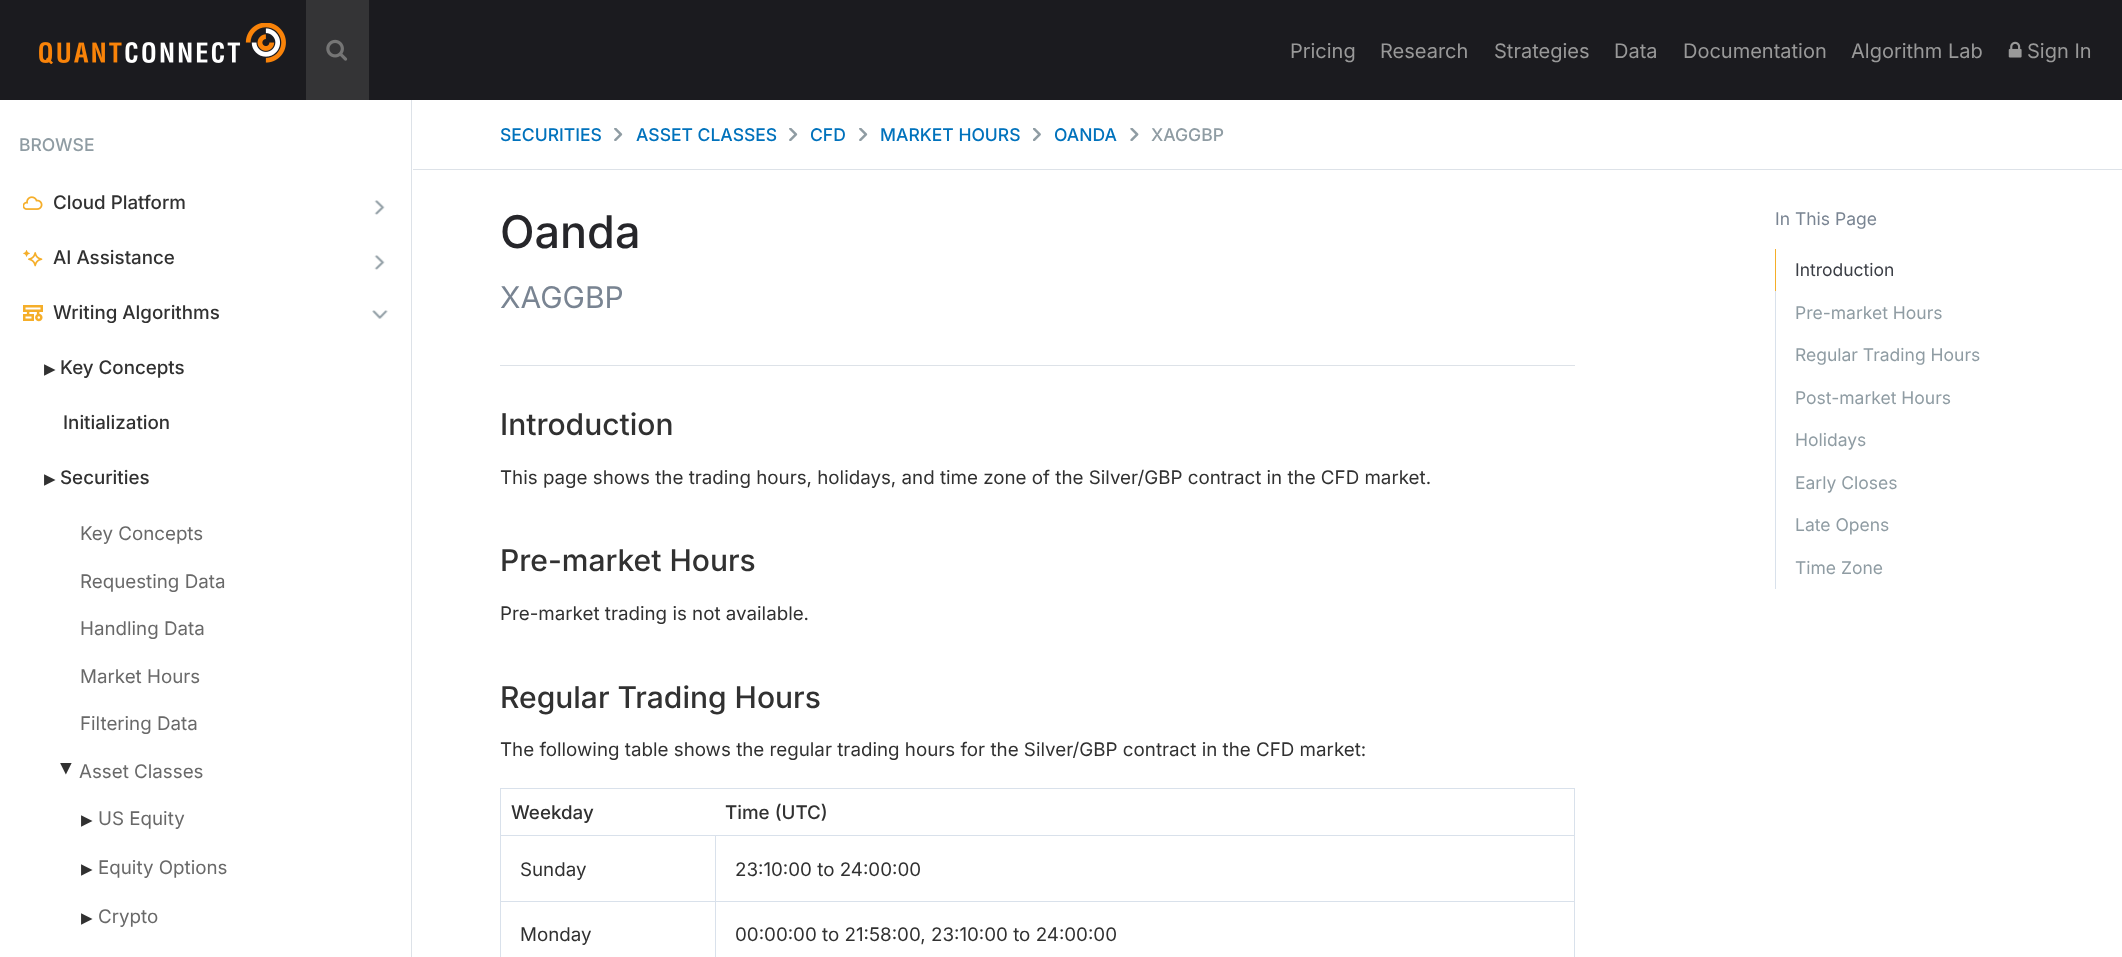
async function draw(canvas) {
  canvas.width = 2122
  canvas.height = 957
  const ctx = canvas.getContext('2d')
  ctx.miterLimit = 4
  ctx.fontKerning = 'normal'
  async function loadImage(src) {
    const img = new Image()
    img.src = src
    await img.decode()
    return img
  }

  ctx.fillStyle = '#fff'
  ctx.fillRect(0, 0, 2122, 957)
  ctx.fillStyle = '#1b1b1f'
  ctx.fillRect(0, 0, 2122, 100)
  ctx.drawImage(await loadImage('image0.png'), 39, 23, 247, 41)
  ctx.fillStyle = '#343436'
  ctx.fillRect(306, 0, 63, 100)
  ctx.drawImage(await loadImage('image1.png'), 326, 39, 22, 22)
  ctx.font = '20px Inter'
  ctx.fillStyle = '#999'
  ctx.fillText('Pricing', 1290, 58)
  ctx.fillText('Research', 1380, 58)
  ctx.fillText('Strategies', 1494, 58)
  ctx.fillText('Data', 1614, 58)
  ctx.fillText('Documentation', 1683, 58)
  ctx.fillText('Algorithm Lab', 1851, 58)
  ctx.drawImage(await loadImage('image2.png'), 2008, 41, 14, 17)
  ctx.fillText('Sign In', 2027, 58)
  ctx.fillStyle = '#dde2e8'
  ctx.fillRect(411, 100, 1, 857)
  ctx.font = '500 17.5px Inter'
  ctx.fillStyle = '#8f9ca3'
  ctx.fillText('BROWSE', 19, 151)
  ctx.drawImage(await loadImage('image3.png'), 23, 196, 20, 14)
  ctx.font = '500 18.75px Inter'
  ctx.fillStyle = '#313131'
  ctx.fillText('Cloud Platform', 53, 209)
  ctx.drawImage(await loadImage('image4.png'), 374, 200, 11, 15)
  ctx.drawImage(await loadImage('image5.png'), 23, 250, 20, 17)
  ctx.fillText('AI Assistance', 53, 264)
  ctx.drawImage(await loadImage('image4.png'), 374, 255, 11, 15)
  ctx.drawImage(await loadImage('image6.png'), 23, 305, 20, 17)
  ctx.fillText('Writing Algorithms', 53, 319)
  ctx.drawImage(await loadImage('image7.png'), 372, 310, 16, 9)
  ctx.font = '15px DejaVu Sans'
  ctx.fillText('▶', 44, 374)
  ctx.font = '500 18.75px Inter'
  ctx.fillText('Key Concepts', 60, 374)
  ctx.fillText('Initialization', 63, 429)
  ctx.font = '15px DejaVu Sans'
  ctx.fillText('▶', 44, 484)
  ctx.font = '500 18.75px Inter'
  ctx.fillText('Securities', 60, 484)
  ctx.font = '18.75px Inter'
  ctx.fillStyle = '#696969'
  ctx.fillText('Key Concepts', 80, 540)
  ctx.fillText('Requesting Data', 80, 588)
  ctx.fillText('Handling Data', 80, 635)
  ctx.fillText('Market Hours', 80, 683)
  ctx.fillText('Filtering Data', 80, 730)
  ctx.font = '15px DejaVu Sans'
  ctx.fillStyle = '#313131'
  ctx.save()
  ctx.translate(62, 763)
  ctx.rotate(90 * Math.PI / 180)
  ctx.fillText('▶', 0, 0)
  ctx.restore()
  ctx.font = '18.75px Inter'
  ctx.fillStyle = '#696969'
  ctx.fillText('Asset Classes', 79, 778)
  ctx.font = '15px DejaVu Sans'
  ctx.fillStyle = '#313131'
  ctx.fillText('▶', 81, 825)
  ctx.font = '18.75px Inter'
  ctx.fillStyle = '#696969'
  ctx.fillText('US Equity', 98, 825)
  ctx.font = '15px DejaVu Sans'
  ctx.fillStyle = '#313131'
  ctx.fillText('▶', 81, 874)
  ctx.font = '18.75px Inter'
  ctx.fillStyle = '#696969'
  ctx.fillText('Equity Options', 98, 874)
  ctx.font = '15px DejaVu Sans'
  ctx.fillStyle = '#313131'
  ctx.fillText('▶', 81, 923)
  ctx.font = '18.75px Inter'
  ctx.fillStyle = '#696969'
  ctx.fillText('Crypto', 98, 923)
  ctx.fillStyle = '#dde2e8'
  ctx.fillRect(413, 169, 1709, 1)
  ctx.font = '500 17.5px Inter'
  ctx.fillStyle = '#0072bc'
  ctx.fillText('SECURITIES', 500, 141)
  ctx.drawImage(await loadImage('image8.png'), 614, 128, 9, 13)
  ctx.fillText('ASSET CLASSES', 636, 141)
  ctx.drawImage(await loadImage('image8.png'), 789, 128, 9, 13)
  ctx.fillText('CFD', 810, 141)
  ctx.drawImage(await loadImage('image8.png'), 859, 128, 9, 13)
  ctx.fillText('MARKET HOURS', 880, 141)
  ctx.drawImage(await loadImage('image9.png'), 1033, 128, 8, 13)
  ctx.fillText('OANDA', 1054, 141)
  ctx.drawImage(await loadImage('image10.png'), 1130, 128, 9, 13)
  ctx.fillStyle = '#8f9ca3'
  ctx.fillText('XAGGBP', 1151, 141)
  ctx.font = '500 45px Inter'
  ctx.fillStyle = '#26262a'
  ctx.fillText('Oanda', 500, 248)
  ctx.fillStyle = '#dde2e8'
  ctx.fillRect(500, 365, 1075, 1)
  ctx.font = '30px Inter'
  ctx.fillStyle = '#798492'
  ctx.fillText('XAGGBP', 500, 308)
  ctx.font = '500 30px Inter'
  ctx.fillStyle = '#313131'
  ctx.fillText('Introduction', 500, 435)
  ctx.font = '18.75px Inter'
  ctx.fillText('This page shows the trading hours, holidays, and time zone of the Silver/GBP contract in the CFD market.', 500, 484)
  ctx.font = '500 30px Inter'
  ctx.fillText('Pre-market Hours', 500, 571)
  ctx.font = '18.75px Inter'
  ctx.fillText('Pre-market trading is not available.', 500, 620)
  ctx.font = '500 30px Inter'
  ctx.fillText('Regular Trading Hours', 500, 708)
  ctx.font = '18.75px Inter'
  ctx.fillText('The following table shows the regular trading hours for the Silver/GBP contract in the CFD market:', 500, 756)
  ctx.fillStyle = '#d9e1eb'
  ctx.fillRect(500, 788, 1075, 1)
  ctx.fillRect(1574, 788, 1, 48)
  ctx.fillRect(500, 788, 1, 48)
  ctx.font = '500 18.75px Inter'
  ctx.fillStyle = '#313131'
  ctx.fillText('Weekday', 511, 819)
  ctx.fillText('Time (UTC)', 725, 819)
  ctx.fillStyle = '#d9e1eb'
  ctx.fillRect(715, 835, 860, 1)
  ctx.fillRect(1574, 901, 1, 56)
  ctx.fillRect(1574, 835, 1, 68)
  ctx.fillRect(715, 901, 1, 56)
  ctx.fillRect(715, 901, 860, 1)
  ctx.fillRect(715, 835, 1, 68)
  ctx.fillRect(500, 835, 216, 1)
  ctx.fillRect(500, 901, 1, 56)
  ctx.fillRect(500, 901, 216, 1)
  ctx.fillRect(500, 835, 1, 68)
  ctx.font = '18.75px Inter'
  ctx.fillStyle = '#313131'
  ctx.fillText('Sunday', 520, 876)
  ctx.fillText('23:10:00 to 24:00:00', 735, 876)
  ctx.fillText('Monday', 520, 941)
  ctx.fillText('00:00:00 to 21:58:00, 23:10:00 to 24:00:00', 735, 941)
  ctx.font = '17.5px Inter'
  ctx.fillStyle = '#798492'
  ctx.fillText('In This Page', 1775, 225)
  ctx.fillStyle = '#f5ae29'
  ctx.fillRect(1775, 249, 1, 42)
  ctx.fillStyle = '#3b3e45'
  ctx.fillText('Introduction', 1795, 276)
  ctx.fillStyle = '#d9e1eb'
  ctx.fillRect(1775, 291, 1, 298)
  ctx.fillStyle = '#8f9ca3'
  ctx.fillText('Pre-market Hours', 1795, 319)
  ctx.fillText('Regular Trading Hours', 1795, 361)
  ctx.fillText('Post-market Hours', 1795, 404)
  ctx.fillText('Holidays', 1795, 446)
  ctx.fillText('Early Closes', 1795, 489)
  ctx.fillText('Late Opens', 1795, 531)
  ctx.fillText('Time Zone', 1795, 574)
}

draw(document.querySelector('canvas'))
